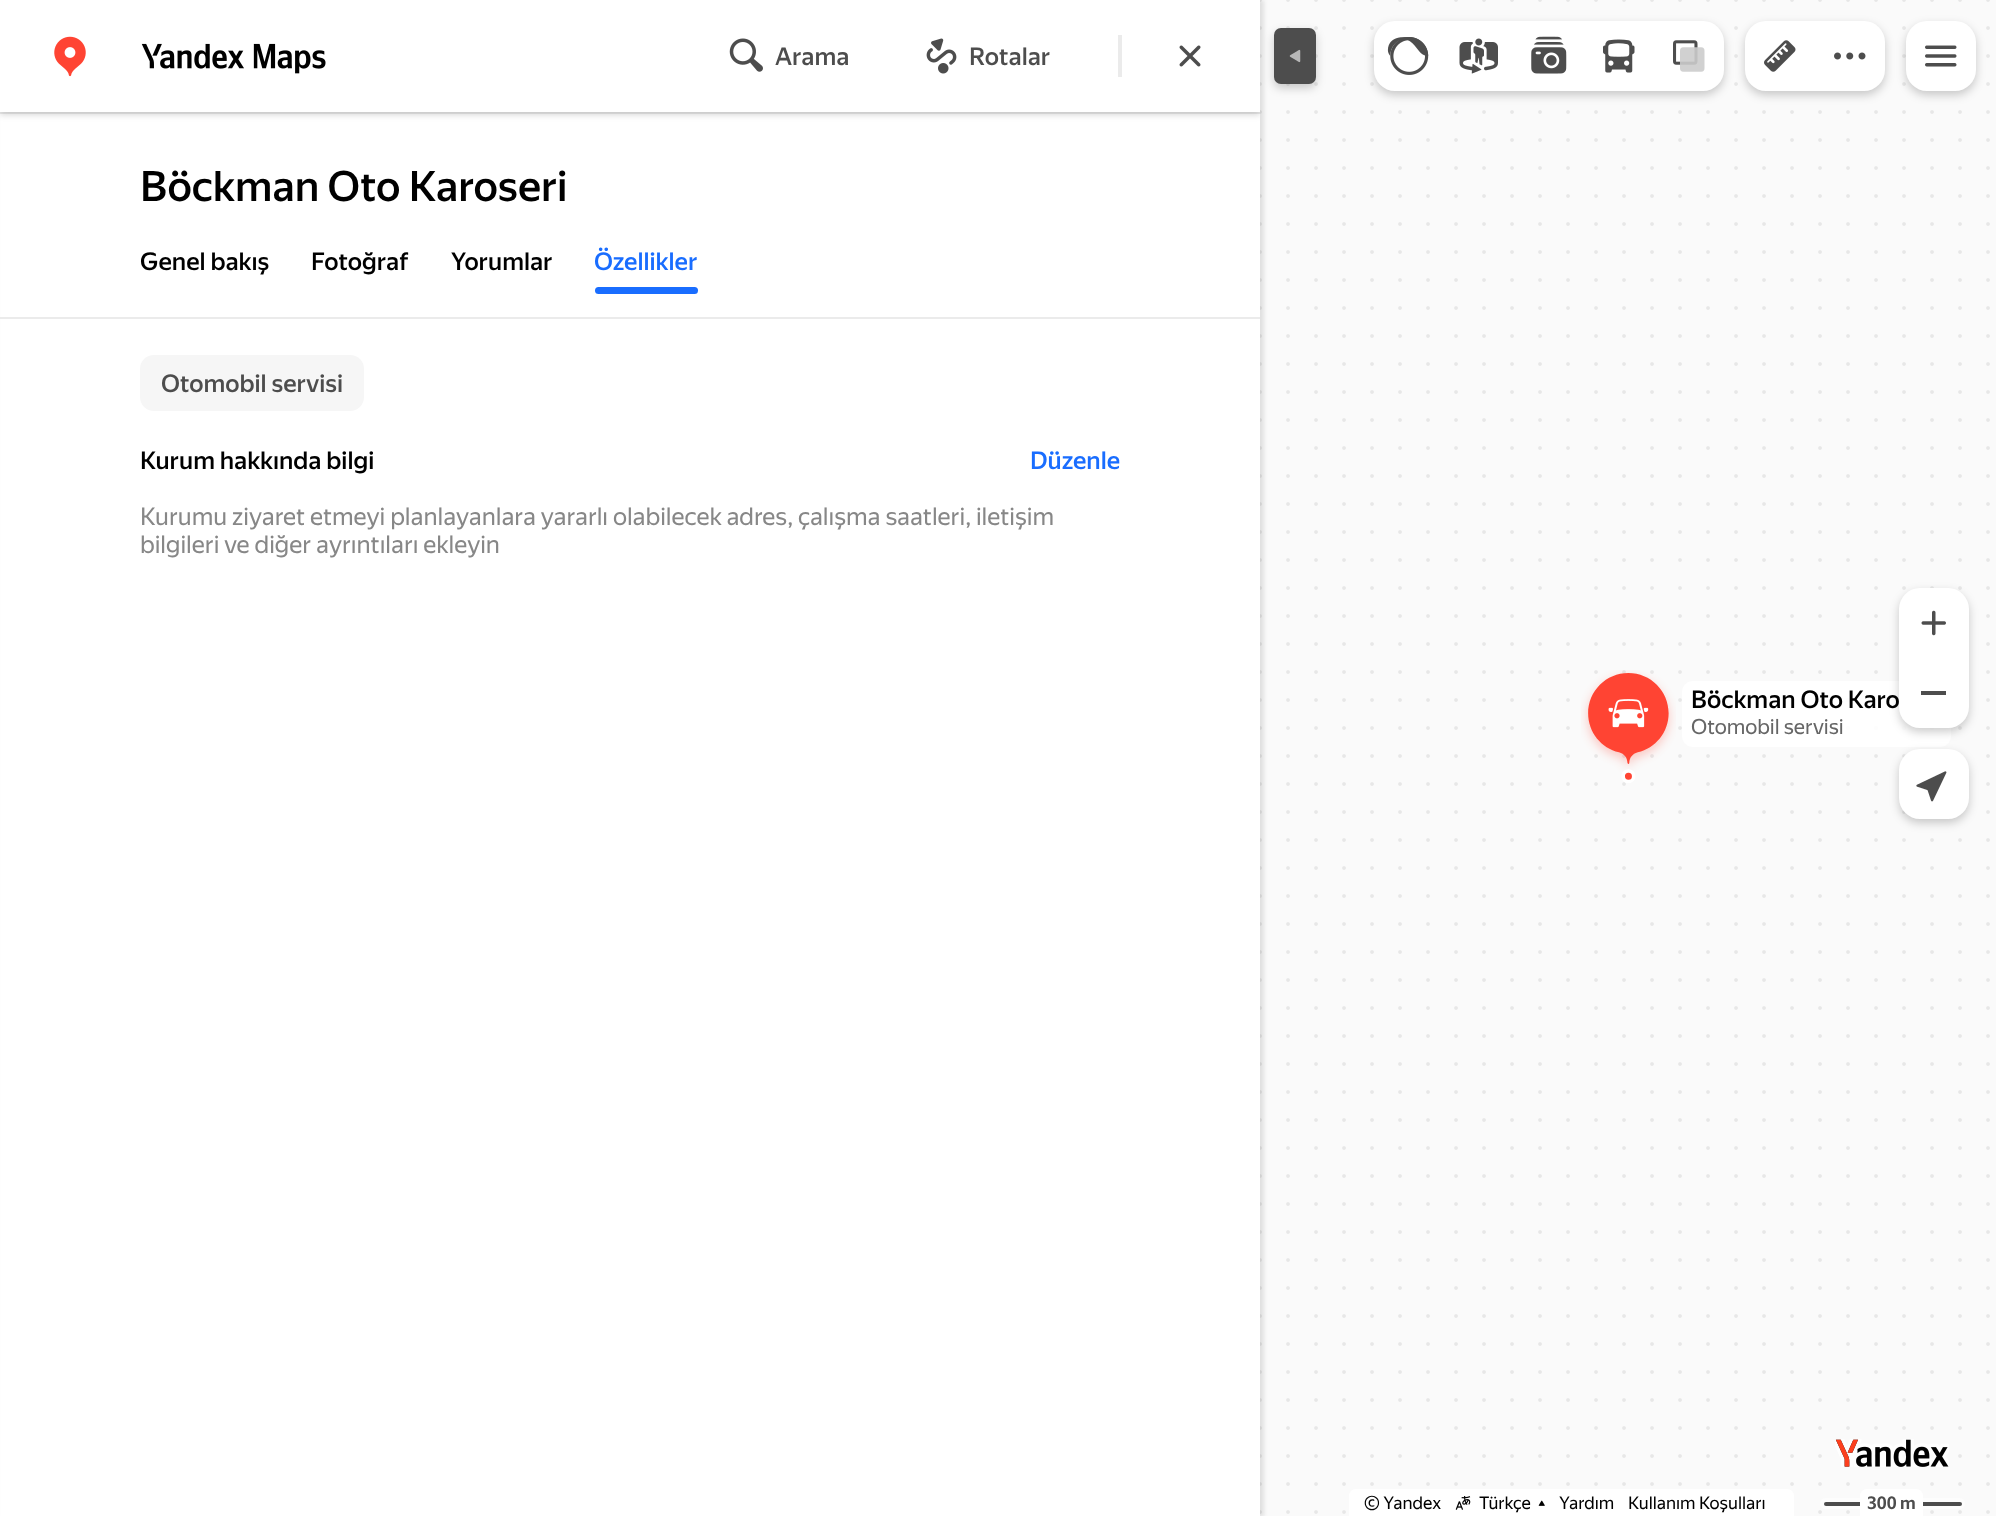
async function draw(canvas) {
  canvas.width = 1996
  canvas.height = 1516
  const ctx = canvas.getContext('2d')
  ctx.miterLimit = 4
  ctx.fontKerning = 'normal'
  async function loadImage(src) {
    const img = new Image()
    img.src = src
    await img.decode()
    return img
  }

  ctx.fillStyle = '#fff'
  ctx.fillRect(0, 0, 1996, 1516)
  ctx.drawImage(await loadImage('image0.png'), 1260, 0, 736, 1516)
  ctx.fillStyle = '#0000001a'
  ctx.filter = 'blur(2px)'
  ctx.beginPath()
  ctx.rect(4, 0, 1260, 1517)
  ctx.fill()
  ctx.filter = 'none'
  ctx.fillStyle = '#fff'
  ctx.fillRect(1, 114, 1259, 1402)
  ctx.fillStyle = '#ebebeb'
  ctx.fillRect(0, 112, 1260, 2)
  ctx.save()
  ctx.beginPath()
  ctx.rect(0, 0, 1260, 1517)
  ctx.clip()
  ctx.fillStyle = '#00000033'
  ctx.filter = 'blur(3.5px)'
  ctx.beginPath()
  ctx.rect(0, 107, 1260, 7)
  ctx.fill()
  ctx.filter = 'none'
  ctx.restore()
  ctx.fillStyle = '#00000033'
  ctx.filter = 'blur(5px)'
  ctx.beginPath()
  ctx.roundRect(1274, 32, 42, 56, 7)
  ctx.fill()
  ctx.filter = 'none'
  ctx.fillStyle = '#fff'
  ctx.fillRect(0, 0, 1260, 112)
  ctx.drawImage(await loadImage('image1.png'), 54, 36, 32, 41)
  ctx.drawImage(await loadImage('image2.png'), 141, 43, 185, 31)
  ctx.drawImage(await loadImage('image3.png'), 729, 38, 34, 34)
  ctx.font = '500 24.5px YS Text'
  ctx.fillStyle = '#4d4d4d'
  ctx.fillText('Arama', 775, 65)
  ctx.drawImage(await loadImage('image4.png'), 926, 38, 31, 36)
  ctx.fillText('Rotalar', 969, 65)
  ctx.fillStyle = '#ebebeb'
  ctx.fillRect(1118, 35, 4, 42)
  ctx.drawImage(await loadImage('image5.png'), 1179, 45, 22, 22)
  ctx.font = '500 42px YS Text'
  ctx.fillStyle = '#000'
  ctx.fillText('Böckman Oto Karoseri', 140, 201)
  ctx.font = '500 24.5px YS Text'
  ctx.fillText('Genel bakış', 140, 270)
  ctx.fillText('Fotoğraf', 311, 270)
  ctx.fillText('Yorumlar', 451, 270)
  ctx.fillStyle = '#196dff'
  ctx.fillText('Özellikler', 594, 270)
  ctx.beginPath()
  ctx.roundRect(595, 287, 103, 7, 3.5)
  ctx.fill()
  ctx.fillStyle = '#ebebeb'
  ctx.fillRect(0, 317, 1260, 2)
  ctx.fillStyle = '#f6f6f6'
  ctx.beginPath()
  ctx.roundRect(140, 355, 224, 56, 14)
  ctx.fill()
  ctx.fillStyle = '#4d4d4d'
  ctx.fillText('Otomobil servisi', 161, 392)
  ctx.fillStyle = '#000'
  ctx.fillText('Kurum hakkında bilgi', 140, 469)
  ctx.fillStyle = '#196dff'
  ctx.fillText('Düzenle', 1030, 469)
  ctx.font = '24.5px YS Text'
  ctx.fillStyle = '#878787'
  ctx.fillText('Kurumu ziyaret etmeyi planlayanlara yararlı olabilecek adres, çalışma saatleri, iletişim', 140, 525)
  ctx.fillText('bilgileri ve diğer ayrıntıları ekleyin', 140, 553)
  ctx.fillStyle = '#4d4d4d'
  ctx.beginPath()
  ctx.roundRect(1274, 28, 42, 56, 7)
  ctx.fill()
  ctx.drawImage(await loadImage('image6.png'), 1289, 49, 12, 14)
  ctx.fillStyle = '#00000033'
  ctx.filter = 'blur(5px)'
  ctx.beginPath()
  ctx.roundRect(1374, 25, 350, 70, 21)
  ctx.fill()
  ctx.filter = 'none'
  ctx.fillStyle = '#fff'
  ctx.beginPath()
  ctx.roundRect(1374, 21, 70, 70, [21, 0, 0, 21])
  ctx.fill()
  ctx.drawImage(await loadImage('image7.png'), 1387, 37, 42, 38)
  ctx.fillRect(1444, 21, 210, 70)
  ctx.drawImage(await loadImage('image8.png'), 1459, 38, 39, 36)
  ctx.beginPath()
  ctx.roundRect(1654, 21, 70, 70, [0, 21, 21, 0])
  ctx.fill()
  ctx.drawImage(await loadImage('image9.png'), 1673, 40, 32, 32)
  ctx.drawImage(await loadImage('image10.png'), 1531, 36, 36, 38)
  ctx.drawImage(await loadImage('image11.png'), 1603, 39, 32, 34)
  ctx.fillStyle = '#00000033'
  ctx.filter = 'blur(5px)'
  ctx.beginPath()
  ctx.roundRect(1745, 25, 140, 70, 21)
  ctx.fill()
  ctx.filter = 'none'
  ctx.fillStyle = '#fff'
  ctx.beginPath()
  ctx.roundRect(1745, 21, 70, 70, [21, 0, 0, 21])
  ctx.fill()
  ctx.drawImage(await loadImage('image12.png'), 1764, 40, 32, 32)
  ctx.beginPath()
  ctx.roundRect(1815, 21, 70, 70, [0, 21, 21, 0])
  ctx.fill()
  ctx.drawImage(await loadImage('image13.png'), 1834, 52, 32, 8)
  ctx.fillStyle = '#00000033'
  ctx.filter = 'blur(5px)'
  ctx.beginPath()
  ctx.roundRect(1906, 25, 70, 70, 21)
  ctx.fill()
  ctx.filter = 'none'
  ctx.fillStyle = '#fff'
  ctx.beginPath()
  ctx.roundRect(1906, 21, 70, 70, 21)
  ctx.fill()
  ctx.drawImage(await loadImage('image14.png'), 1925, 45, 32, 22)
  ctx.fillStyle = '#ffffffe6'
  ctx.beginPath()
  ctx.roundRect(1682, 681, 269, 66, 11)
  ctx.fill()
  ctx.fillStyle = '#00000033'
  ctx.filter = 'blur(5px)'
  ctx.beginPath()
  ctx.roundRect(1899, 592, 70, 140, 21)
  ctx.fill()
  ctx.filter = 'none'
  ctx.fillStyle = '#fff'
  ctx.beginPath()
  ctx.roundRect(1899, 588, 70, 70, [21, 21, 0, 0])
  ctx.fill()
  ctx.drawImage(await loadImage('image15.png'), 1921, 610, 25, 26)
  ctx.font = '500 24.5px YS Text'
  ctx.fillStyle = '#000'
  ctx.fillText('Böckman Oto Karo', 1691, 708)
  ctx.fillStyle = '#fff'
  ctx.beginPath()
  ctx.roundRect(1899, 658, 70, 70, [0, 0, 21, 21])
  ctx.fill()
  ctx.fillStyle = '#4d4d4d'
  ctx.fillRect(1921, 691, 25, 4)
  ctx.fillStyle = '#00000033'
  ctx.filter = 'blur(5px)'
  ctx.beginPath()
  ctx.roundRect(1899, 753, 70, 70, 21)
  ctx.fill()
  ctx.filter = 'none'
  ctx.fillStyle = '#fff'
  ctx.beginPath()
  ctx.roundRect(1899, 749, 70, 70, 21)
  ctx.fill()
  ctx.drawImage(await loadImage('image16.png'), 1916, 771, 31, 31)
  ctx.drawImage(await loadImage('image17.png'), 1835, 1439, 114, 28)
  ctx.beginPath()
  ctx.moveTo(1356, 1489)
  ctx.lineTo(1787, 1489)
  ctx.bezierCurveTo(1791, 1489, 1794, 1492, 1794, 1496)
  ctx.lineTo(1794, 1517)
  ctx.lineTo(1349, 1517)
  ctx.lineTo(1349, 1496)
  ctx.bezierCurveTo(1349, 1492, 1352, 1489, 1356, 1489)
  ctx.closePath()
  ctx.fill()
  ctx.font = '17.5px YS Text'
  ctx.fillStyle = '#000'
  ctx.fillText('© Yandex', 1364, 1509)
  ctx.drawImage(await loadImage('image18.png'), 1455, 1496, 16, 14)
  ctx.fillText('Türkçe', 1479, 1509)
  ctx.drawImage(await loadImage('image19.png'), 1538, 1500, 7, 6)
  ctx.fillText('Yardım', 1559, 1509)
  ctx.fillText('Kullanım Koşulları', 1628, 1509)
  ctx.fillStyle = '#fdfdfd'
  ctx.beginPath()
  ctx.roundRect(1820, 1498, 145, 11, 5.5)
  ctx.fill()
  ctx.fillStyle = '#4d4d4d'
  ctx.beginPath()
  ctx.roundRect(1824, 1502, 138, 4, 2)
  ctx.fill()
  ctx.fillStyle = '#fff'
  ctx.beginPath()
  ctx.moveTo(1867, 1489)
  ctx.lineTo(1916, 1489)
  ctx.bezierCurveTo(1920, 1489, 1923, 1492, 1923, 1496)
  ctx.lineTo(1923, 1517)
  ctx.lineTo(1860, 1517)
  ctx.lineTo(1860, 1496)
  ctx.bezierCurveTo(1860, 1492, 1863, 1489, 1867, 1489)
  ctx.closePath()
  ctx.fill()
  ctx.font = 'bold 17.5px YS Text'
  ctx.fillStyle = '#4d4d4d'
  ctx.fillText('300 m', 1867, 1509)
  ctx.drawImage(await loadImage('image20.png'), 1581, 670, 95, 113)
  ctx.drawImage(await loadImage('image21.png'), 1608, 699, 41, 29)
  ctx.font = '21px YS Text'
  ctx.fillStyle = '#666'
  ctx.fillText('Otomobil servisi', 1691, 734)
}

draw(document.querySelector('canvas'))
